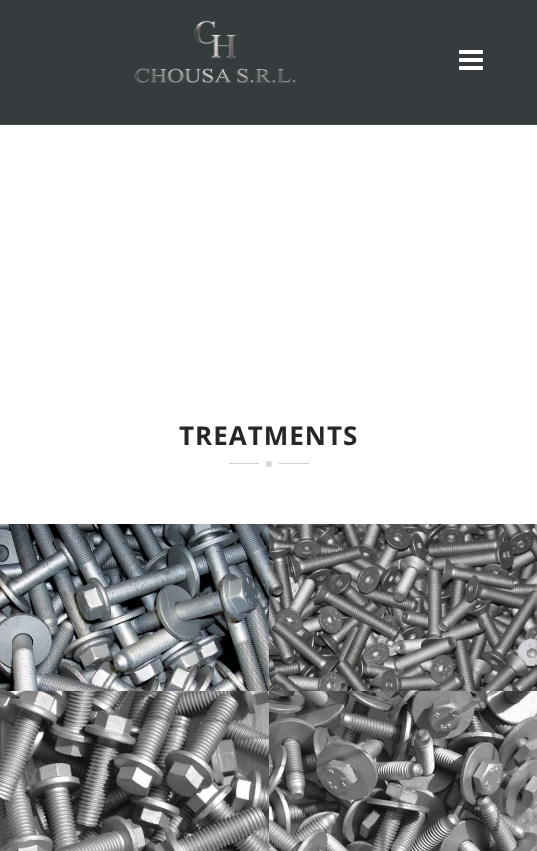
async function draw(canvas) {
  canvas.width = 537
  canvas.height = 851
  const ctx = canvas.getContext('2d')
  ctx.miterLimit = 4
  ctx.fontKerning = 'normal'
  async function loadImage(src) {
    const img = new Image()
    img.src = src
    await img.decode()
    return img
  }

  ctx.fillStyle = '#fff'
  ctx.fillRect(0, 0, 537, 851)
  ctx.fillStyle = '#363b3e'
  ctx.fillRect(0, 0, 537, 124)
  ctx.fillStyle = '#4a4f51'
  ctx.fillRect(0, 124, 537, 1)
  ctx.drawImage(await loadImage('image0.png'), 133, 20, 163, 63)
  ctx.drawImage(await loadImage('image1.png'), 459, 50, 24, 20)
  ctx.letterSpacing = '1px'
  ctx.font = 'bold 26px Open Sans'
  ctx.fillStyle = '#272727'
  ctx.fillText('TREATMENTS', 179, 445)
  ctx.fillStyle = '#d2d8da'
  ctx.beginPath()
  ctx.arc(269, 464, 3, 0, 2 * Math.PI)
  ctx.fill()
  ctx.fillStyle = '#ced0d1'
  ctx.fillRect(229, 463, 30, 1)
  ctx.fillRect(279, 463, 30, 1)
  ctx.drawImage(await loadImage('image2.png'), 0, 524, 269, 167)
  ctx.drawImage(await loadImage('image3.png'), 269, 524, 268, 167)
  ctx.drawImage(await loadImage('image4.png'), 0, 691, 269, 160)
  ctx.drawImage(await loadImage('image5.png'), 269, 691, 268, 160)
}

draw(document.querySelector('canvas'))
